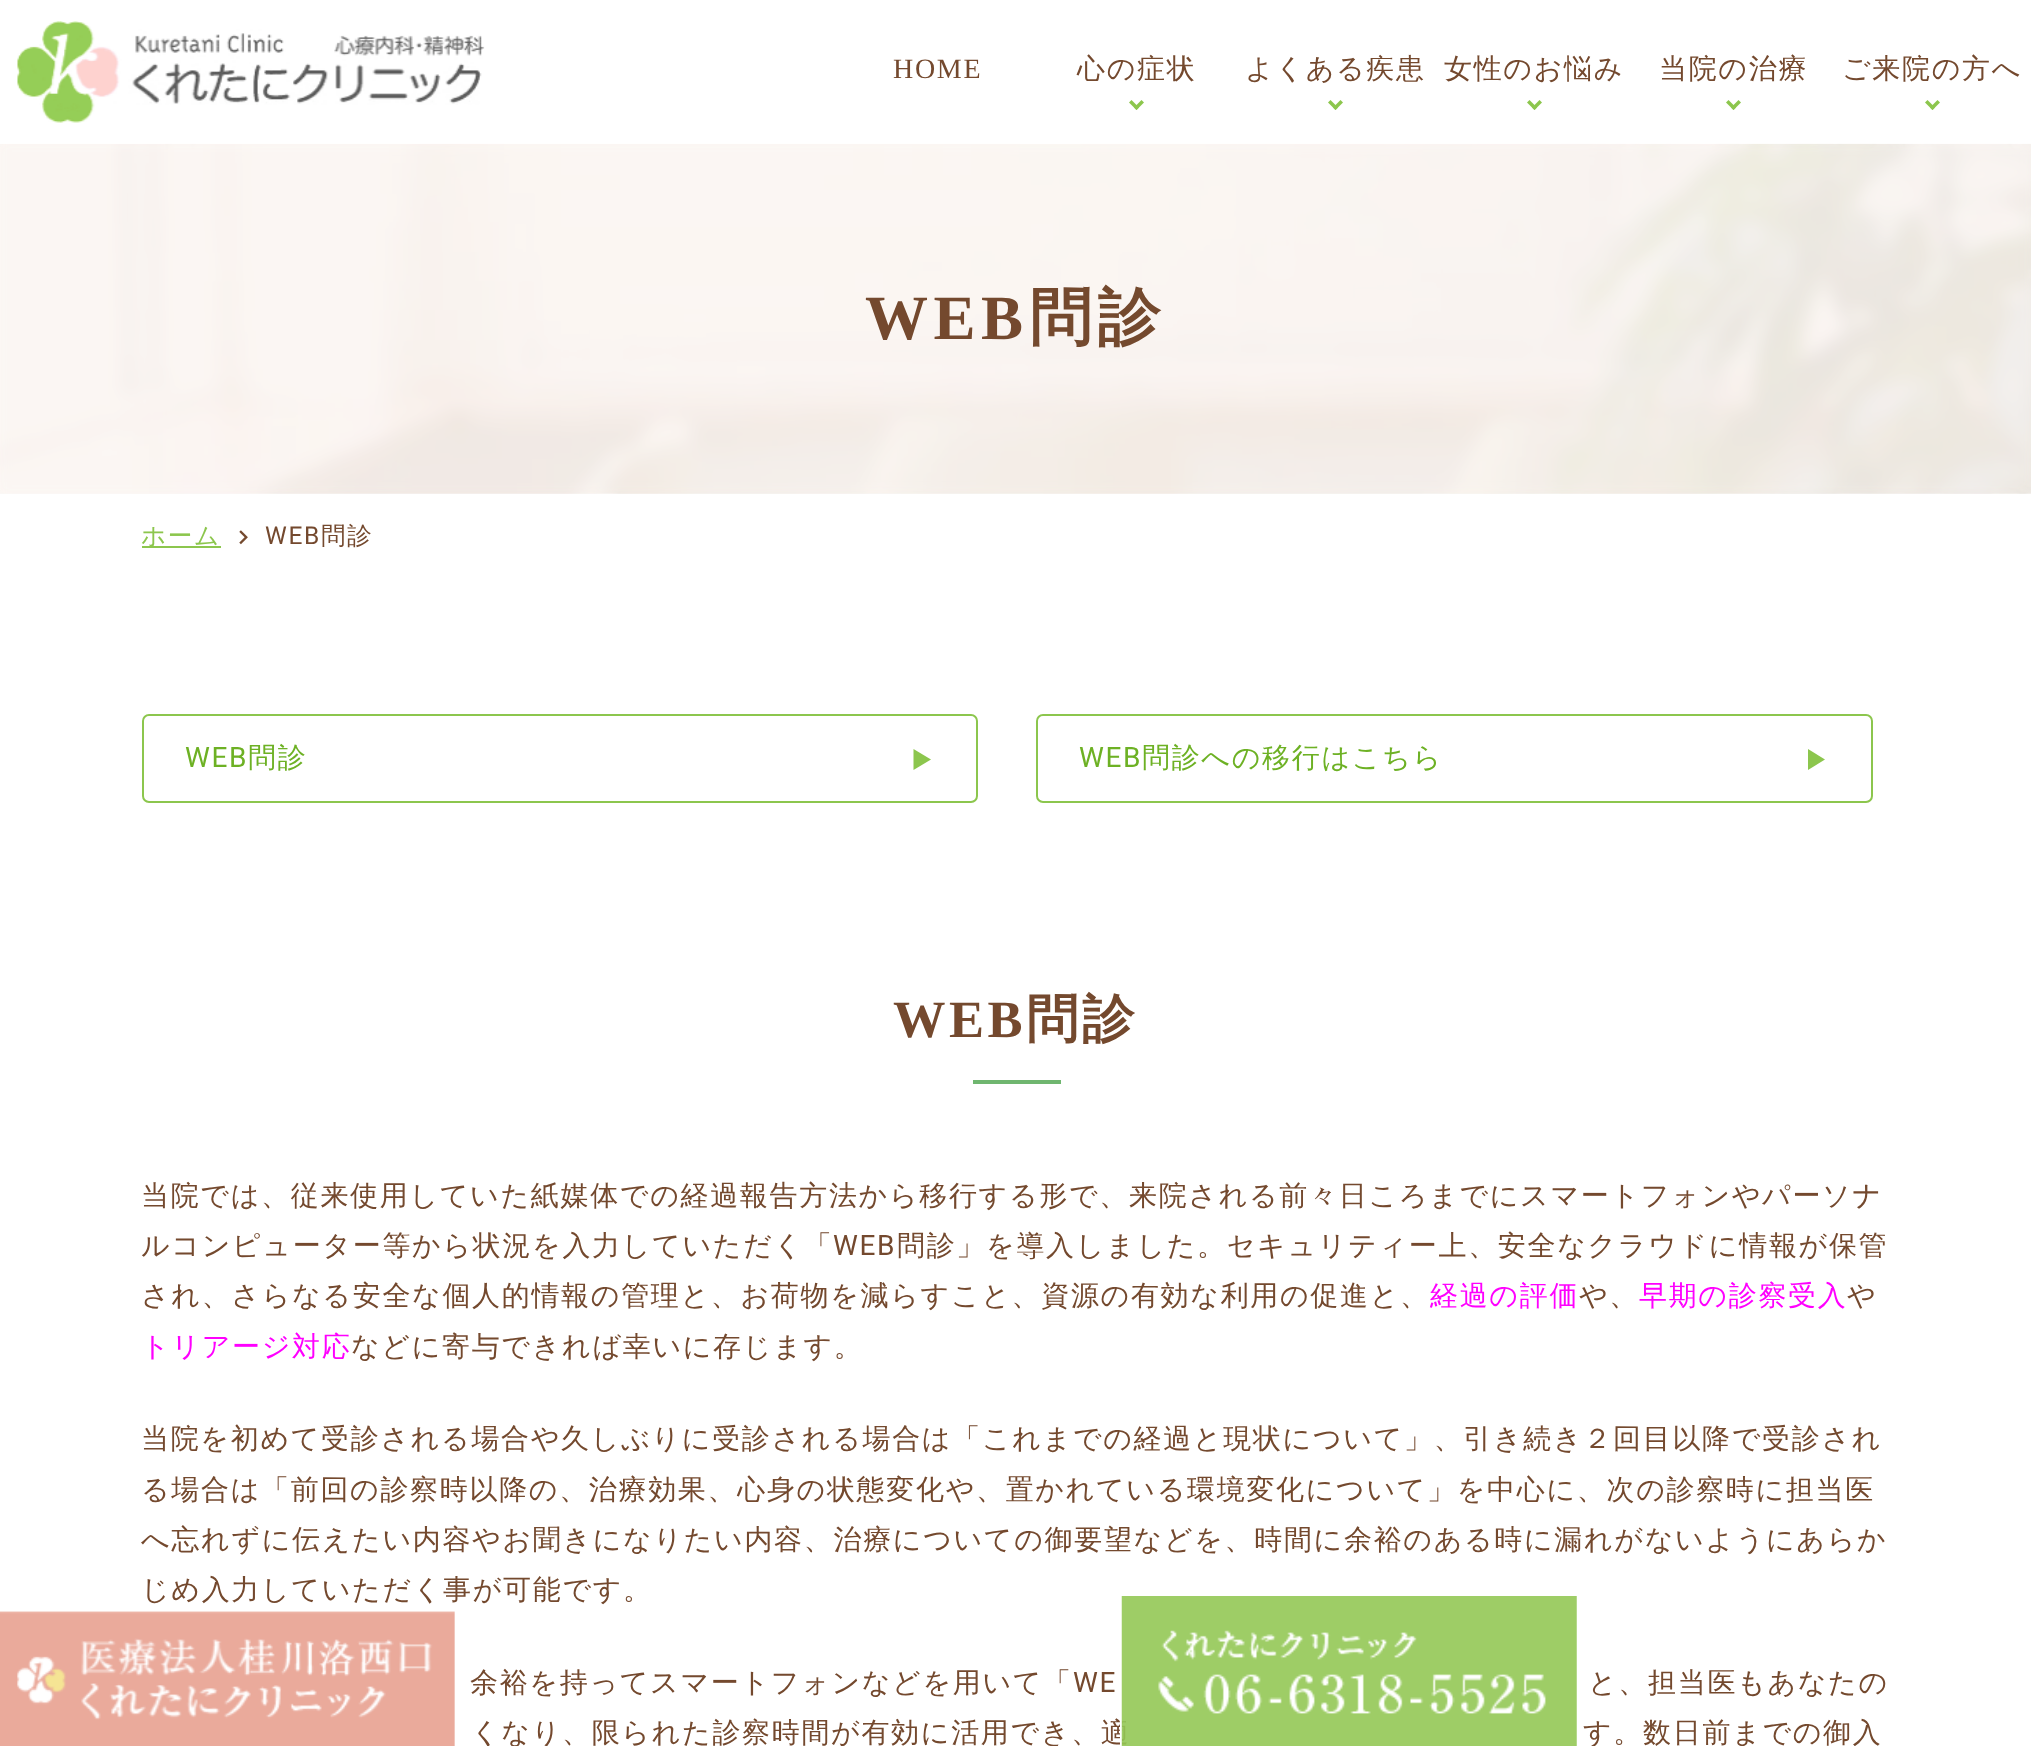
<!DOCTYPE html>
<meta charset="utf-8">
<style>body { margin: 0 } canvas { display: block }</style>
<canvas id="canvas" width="2031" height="1746"></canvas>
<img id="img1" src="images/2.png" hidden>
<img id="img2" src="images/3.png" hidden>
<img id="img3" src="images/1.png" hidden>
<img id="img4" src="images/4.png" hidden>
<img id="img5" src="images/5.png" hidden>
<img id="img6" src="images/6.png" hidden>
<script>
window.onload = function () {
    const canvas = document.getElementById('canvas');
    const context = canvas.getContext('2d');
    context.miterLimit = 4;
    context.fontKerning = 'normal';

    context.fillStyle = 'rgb(255, 255, 255)';
    context.fillRect(0, 0, 2031, 1746);
    context.fillStyle = 'rgb(251, 251, 250)';
    context.fillRect(0, 493, 2031, 1);
    context.drawImage(document.getElementById('img1'), 0, 143, 2031, 351);
    context.drawImage(document.getElementById('img2'), 0, 143, 2031, 351);
    context.fillStyle = 'rgba(255, 255, 255, 0.9)';
    context.fillRect(0, 143, 2031, 1);
    context.drawImage(document.getElementById('img3'), 17, 21, 468, 102);
    context.fillStyle = 'rgb(140, 198, 77)';
    context.beginPath();
    context.moveTo(1144, 102.5);
    context.lineTo(1136.5, 110);
    context.lineTo(1134, 107.5);
    context.lineTo(1141.5, 100);
    context.closePath();
    context.fill();
    context.beginPath();
    context.moveTo(1139, 107.5);
    context.lineTo(1136.5, 110);
    context.lineTo(1129, 102.5);
    context.lineTo(1131.5, 100);
    context.closePath();
    context.fill();
    context.beginPath();
    context.moveTo(1343, 102.5);
    context.lineTo(1335.5, 110);
    context.lineTo(1333, 107.5);
    context.lineTo(1340.5, 100);
    context.closePath();
    context.fill();
    context.beginPath();
    context.moveTo(1338, 107.5);
    context.lineTo(1335.5, 110);
    context.lineTo(1328, 102.5);
    context.lineTo(1330.5, 100);
    context.closePath();
    context.fill();
    context.beginPath();
    context.moveTo(1542, 102.5);
    context.lineTo(1534.5, 110);
    context.lineTo(1532, 107.5);
    context.lineTo(1539.5, 100);
    context.closePath();
    context.fill();
    context.beginPath();
    context.moveTo(1537, 107.5);
    context.lineTo(1534.5, 110);
    context.lineTo(1527, 102.5);
    context.lineTo(1529.5, 100);
    context.closePath();
    context.fill();
    context.beginPath();
    context.moveTo(1741, 102.5);
    context.lineTo(1733.5, 110);
    context.lineTo(1731, 107.5);
    context.lineTo(1738.5, 100);
    context.closePath();
    context.fill();
    context.beginPath();
    context.moveTo(1736, 107.5);
    context.lineTo(1733.5, 110);
    context.lineTo(1726, 102.5);
    context.lineTo(1728.5, 100);
    context.closePath();
    context.fill();
    context.beginPath();
    context.moveTo(1940, 102.5);
    context.lineTo(1932.5, 110);
    context.lineTo(1930, 107.5);
    context.lineTo(1937.5, 100);
    context.closePath();
    context.fill();
    context.beginPath();
    context.moveTo(1935, 107.5);
    context.lineTo(1932.5, 110);
    context.lineTo(1925, 102.5);
    context.lineTo(1927.5, 100);
    context.closePath();
    context.fill();
    context.fillRect(142, 546, 79, 2);
    context.drawImage(document.getElementById('img4'), 239, 530, 9, 15);
    context.beginPath();
    context.roundRect(143, 715, 834, 87, 6);
    context.strokeStyle = 'rgb(140, 198, 77)';
    context.lineWidth = 2;
    context.stroke();
    context.beginPath();
    context.moveTo(913.5, 770);
    context.lineTo(913.5, 749);
    context.lineTo(931, 759.5);
    context.closePath();
    context.fill();
    context.beginPath();
    context.roundRect(1037, 715, 835, 87, 6);
    context.stroke();
    context.beginPath();
    context.moveTo(1808, 770);
    context.lineTo(1808, 749);
    context.lineTo(1825, 759.5);
    context.closePath();
    context.fill();
    context.fillStyle = 'rgb(111, 182, 111)';
    context.fillRect(973, 1080, 88, 4);
    context.drawImage(document.getElementById('img5'), 0, 1611, 455, 135);
    context.letterSpacing = '1.68px';
    context.font = '28px Liberation Serif';
    context.fillStyle = 'rgb(116, 73, 46)';
    context.fillText('HOME', 893, 78);
    context.font = '500 28px WenQuanYi Zen Hei';
    context.fillText('心の症状', 1077, 78);
    context.fillText('よくある疾患', 1245, 78);
    context.fillText('女性のお悩み', 1444, 78);
    context.fillText('当院の治療', 1659, 78);
    context.fillText('ご来院の方へ', 1842, 78);
    context.letterSpacing = '5.5px';
    context.font = 'bold 63px Liberation Serif';
    context.fillText('WEB', 865, 339);
    context.font = 'bold 63px WenQuanYi Zen Hei';
    context.fillText('問診', 1029, 339);
    context.letterSpacing = '1.68px';
    context.font = '500 24.5px WenQuanYi Zen Hei';
    context.fillStyle = 'rgb(140, 198, 77)';
    context.fillText('ホーム', 141, 544);
    context.font = '24.5px Roboto';
    context.fillStyle = 'rgb(116, 73, 46)';
    context.fillText('WEB', 265, 544);
    context.font = '500 24.5px WenQuanYi Zen Hei';
    context.fillText('問診', 321, 544);
    context.font = '28px Roboto';
    context.fillStyle = 'rgb(109, 177, 36)';
    context.fillText('WEB', 185, 767);
    context.font = '500 28px WenQuanYi Zen Hei';
    context.fillText('問診', 248, 767);
    context.font = '28px Roboto';
    context.fillText('WEB', 1079, 767);
    context.font = '500 28px WenQuanYi Zen Hei';
    context.fillText('問診への移行はこちら', 1142, 767);
    context.letterSpacing = '3.5px';
    context.font = 'bold 52.5px Liberation Serif';
    context.fillStyle = 'rgb(116, 73, 46)';
    context.fillText('WEB', 893, 1037);
    context.font = 'bold 52.5px WenQuanYi Zen Hei';
    context.fillText('問診', 1026, 1037);
    context.letterSpacing = '1.68px';
    context.font = '500 28px WenQuanYi Zen Hei';
    context.fillText('当院では、従来使用していた紙媒体での経過報告方法から移行する形で、来院される前々日ころまでにスマートフォンやパーソナ', 141, 1205);
    context.fillText('ルコンピューター等から状況を入力していただく「', 141, 1255);
    context.font = '28px Roboto';
    context.fillText('WEB', 833, 1255);
    context.font = '500 28px WenQuanYi Zen Hei';
    context.fillText('問診」を導入しました。セキュリティー上、安全なクラウドに情報が保管', 897, 1255);
    context.fillText('され、さらなる安全な個人的情報の管理と、お荷物を減らすこと、資源の有効な利用の促進と、', 141, 1305);
    context.fillStyle = 'rgb(255, 0, 255)';
    context.fillText('経過の評価', 1430, 1305);
    context.fillStyle = 'rgb(116, 73, 46)';
    context.fillText('や、', 1579, 1305);
    context.fillStyle = 'rgb(255, 0, 255)';
    context.fillText('早期の診察受入', 1639, 1305);
    context.fillStyle = 'rgb(116, 73, 46)';
    context.fillText('や', 1847, 1305);
    context.fillStyle = 'rgb(255, 0, 255)';
    context.fillText('トリアージ対応', 141, 1356);
    context.fillStyle = 'rgb(116, 73, 46)';
    context.fillText('などに寄与できれば幸いに存じます。', 351, 1356);
    context.fillText('当院を初めて受診される場合や久しぶりに受診される場合は「これまでの経過と現状について」、引き続き２回目以降で受診され', 141, 1448);
    context.fillText('る場合は「前回の診察時以降の、治療効果、心身の状態変化や、置かれている環境変化について」を中心に、次の診察時に担当医', 141, 1499);
    context.fillText('へ忘れずに伝えたい内容やお聞きになりたい内容、治療についての御要望などを、時間に余裕のある時に漏れがないようにあらか', 141, 1549);
    context.fillText('じめ入力していただく事が可能です。', 141, 1599);
    context.fillText('余裕を持ってスマートフォンなどを用いて「', 470, 1692);
    context.font = '28px Roboto';
    context.fillText('WE', 1073, 1692);
    context.font = '500 28px WenQuanYi Zen Hei';
    context.fillText('と、担当医もあなたの', 1588, 1692);
    context.fillText('くなり、限られた診察時間が有効に活用でき、適', 471, 1742);
    context.fillText('す。数日前までの御入', 1583, 1742);
    context.fillStyle = 'rgb(255, 255, 255)';
    context.fillRect(1120, 1721, 2, 25);
    context.drawImage(document.getElementById('img6'), 1121, 1596, 456, 150);
};
</script>
